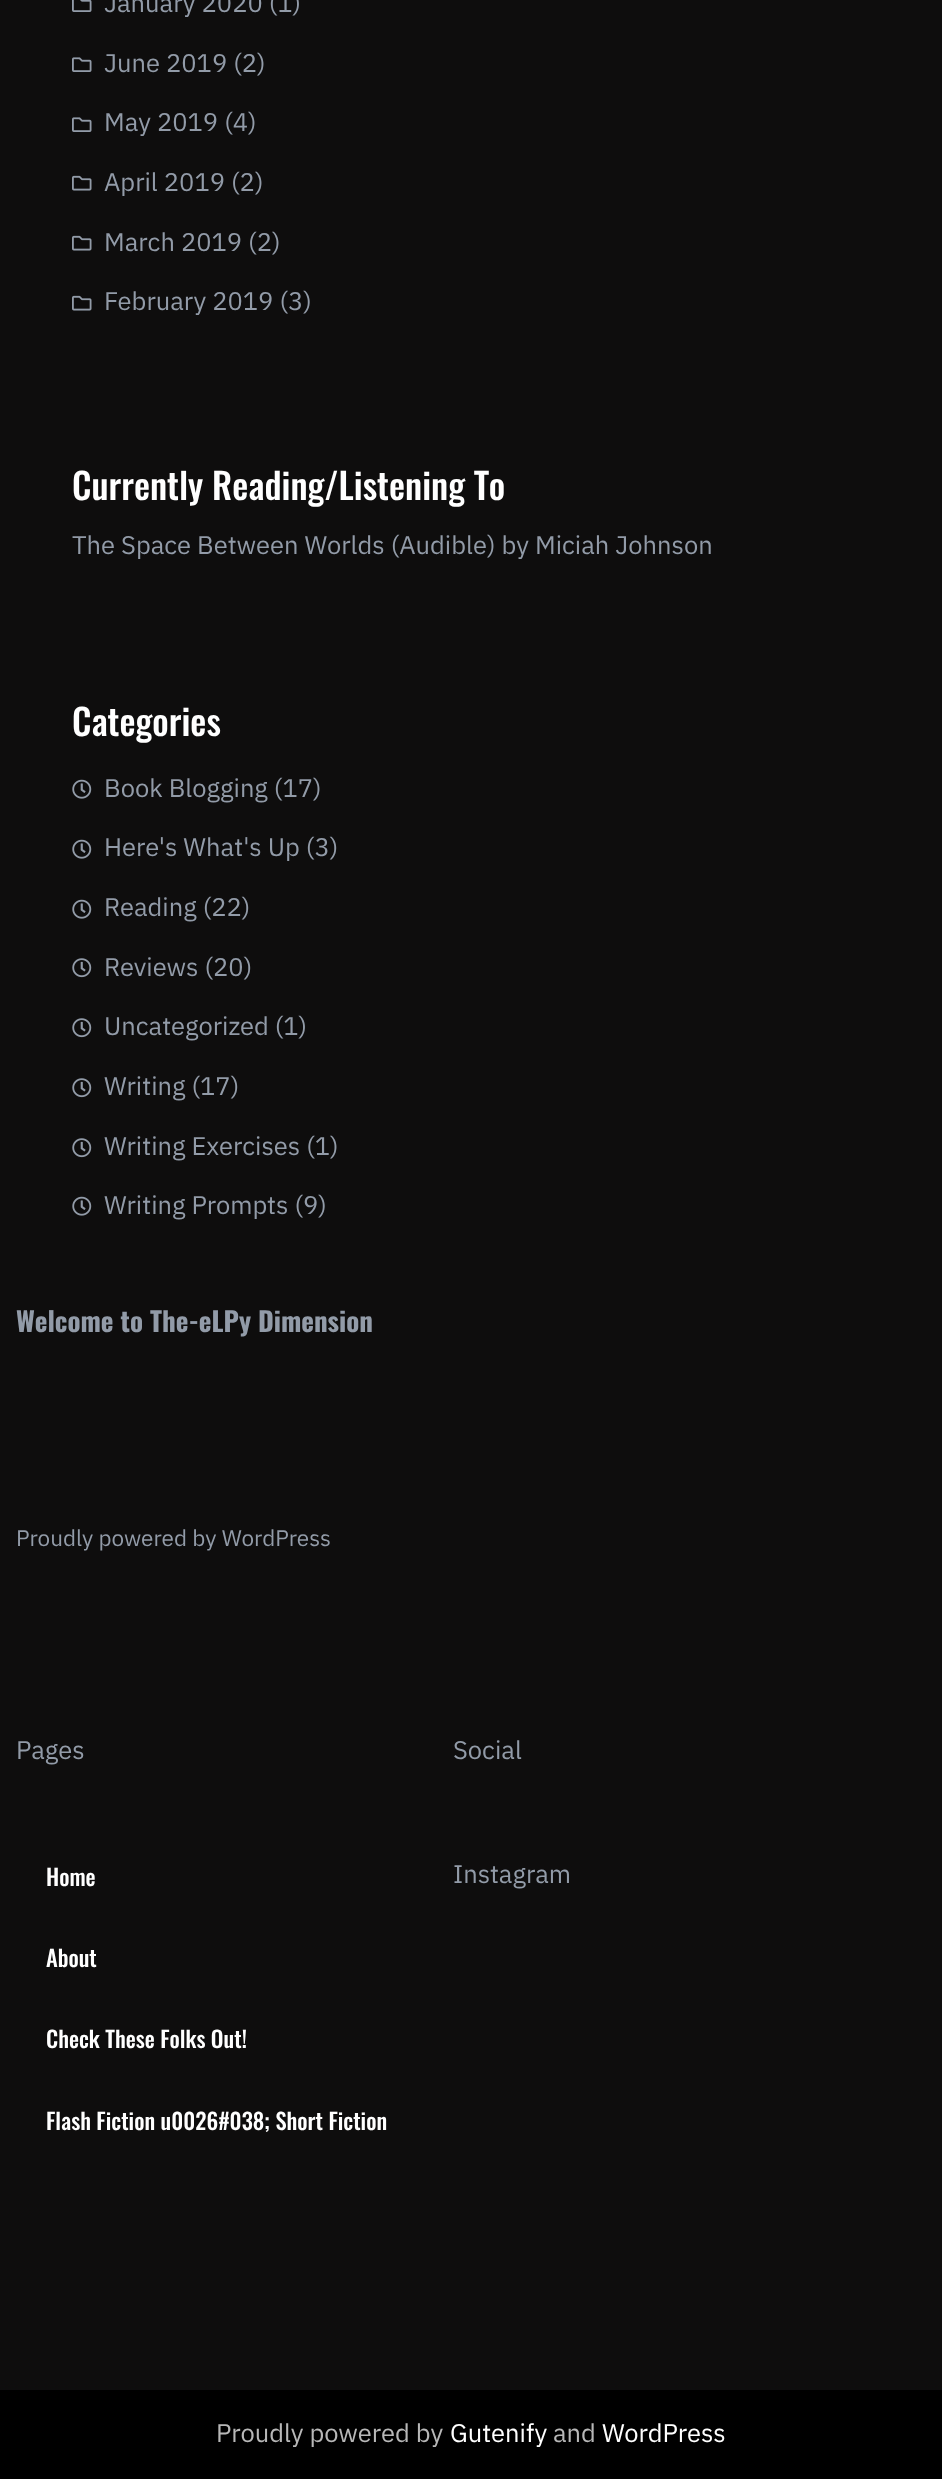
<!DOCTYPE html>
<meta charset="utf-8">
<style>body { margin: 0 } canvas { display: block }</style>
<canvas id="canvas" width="942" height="2479"></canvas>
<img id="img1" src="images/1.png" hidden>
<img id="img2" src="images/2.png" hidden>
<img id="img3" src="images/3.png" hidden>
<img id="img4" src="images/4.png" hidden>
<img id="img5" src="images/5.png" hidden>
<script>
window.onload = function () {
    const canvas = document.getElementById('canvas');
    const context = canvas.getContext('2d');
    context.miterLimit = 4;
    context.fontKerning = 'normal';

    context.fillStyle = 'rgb(0, 0, 0)';
    context.fillRect(0, 0, 942, 2479);
    context.fillStyle = 'rgb(14, 13, 13)';
    context.fillRect(0, 0, 942, 2390);
    context.drawImage(document.getElementById('img1'), 72, 0, 20, 12);
    context.drawImage(document.getElementById('img2'), 72, 57, 20, 15);
    context.drawImage(document.getElementById('img2'), 72, 117, 20, 15);
    context.drawImage(document.getElementById('img3'), 72, 175, 20, 16);
    context.drawImage(document.getElementById('img3'), 72, 235, 20, 16);
    context.drawImage(document.getElementById('img3'), 72, 295, 20, 16);
    context.drawImage(document.getElementById('img4'), 72, 779, 20, 20);
    context.drawImage(document.getElementById('img4'), 72, 839, 20, 20);
    context.drawImage(document.getElementById('img4'), 72, 899, 20, 20);
    context.drawImage(document.getElementById('img5'), 72, 958, 20, 20);
    context.drawImage(document.getElementById('img5'), 72, 1018, 20, 20);
    context.drawImage(document.getElementById('img5'), 72, 1078, 20, 20);
    context.drawImage(document.getElementById('img5'), 72, 1138, 20, 20);
    context.drawImage(document.getElementById('img4'), 72, 1196, 20, 20);
    context.font = '25.5px IBM Plex Sans';
    context.fillStyle = 'rgb(146, 155, 168)';
    context.fillText('January 2020 (1)', 104, 12);
    context.fillText('June 2019 (2)', 104, 72);
    context.fillText('May 2019 (4)', 104, 131);
    context.fillText('April 2019 (2)', 104, 191);
    context.fillText('March 2019 (2)', 104, 251);
    context.fillText('February 2019 (3)', 104, 310);
    context.font = '500 36px Oswald';
    context.fillStyle = 'rgb(255, 255, 255)';
    context.fillText('Currently Reading/Listening To', 72, 500);
    context.font = '25.5px IBM Plex Sans';
    context.fillStyle = 'rgb(146, 155, 168)';
    context.fillText('The Space Between Worlds (Audible) by Miciah Johnson', 72, 554);
    context.font = '500 36px Oswald';
    context.fillStyle = 'rgb(255, 255, 255)';
    context.fillText('Categories', 72, 736);
    context.font = '25.5px IBM Plex Sans';
    context.fillStyle = 'rgb(146, 155, 168)';
    context.fillText('Book Blogging (17)', 104, 797);
    context.fillText('Here\'s What\'s Up (3)', 104, 856);
    context.fillText('Reading (22)', 104, 916);
    context.fillText('Reviews (20)', 104, 976);
    context.fillText('Uncategorized (1)', 104, 1035);
    context.fillText('Writing (17)', 104, 1095);
    context.fillText('Writing Exercises (1)', 104, 1155);
    context.fillText('Writing Prompts (9)', 104, 1214);
    context.font = 'bold 27px Oswald';
    context.fillText('Welcome to The-eLPy Dimension', 16, 1332);
    context.font = '22.5px IBM Plex Sans';
    context.fillText('Proudly powered by WordPress', 16, 1546);
    context.font = '25.5px IBM Plex Sans';
    context.fillText('Pages', 16, 1759);
    context.font = '500 22.5px Oswald';
    context.fillStyle = 'rgb(255, 255, 255)';
    context.fillText('Home', 46, 1886);
    context.fillText('About', 46, 1967);
    context.fillText('Check These Folks Out!', 46, 2048);
    context.fillText('Flash Fiction u0026#038; Short Fiction', 46, 2130);
    context.font = '25.5px IBM Plex Sans';
    context.fillStyle = 'rgb(146, 155, 168)';
    context.fillText('Social', 453, 1759);
    context.fillText('Instagram', 453, 1883);
    context.fillStyle = 'rgb(183, 183, 183)';
    context.fillText('Proudly powered by', 216, 2442);
    context.fillStyle = 'rgb(255, 255, 255)';
    context.fillText('Gutenify', 450, 2442);
    context.fillStyle = 'rgb(183, 183, 183)';
    context.fillText('and', 553, 2442);
    context.fillStyle = 'rgb(255, 255, 255)';
    context.fillText('WordPress', 602, 2442);
};
</script>
